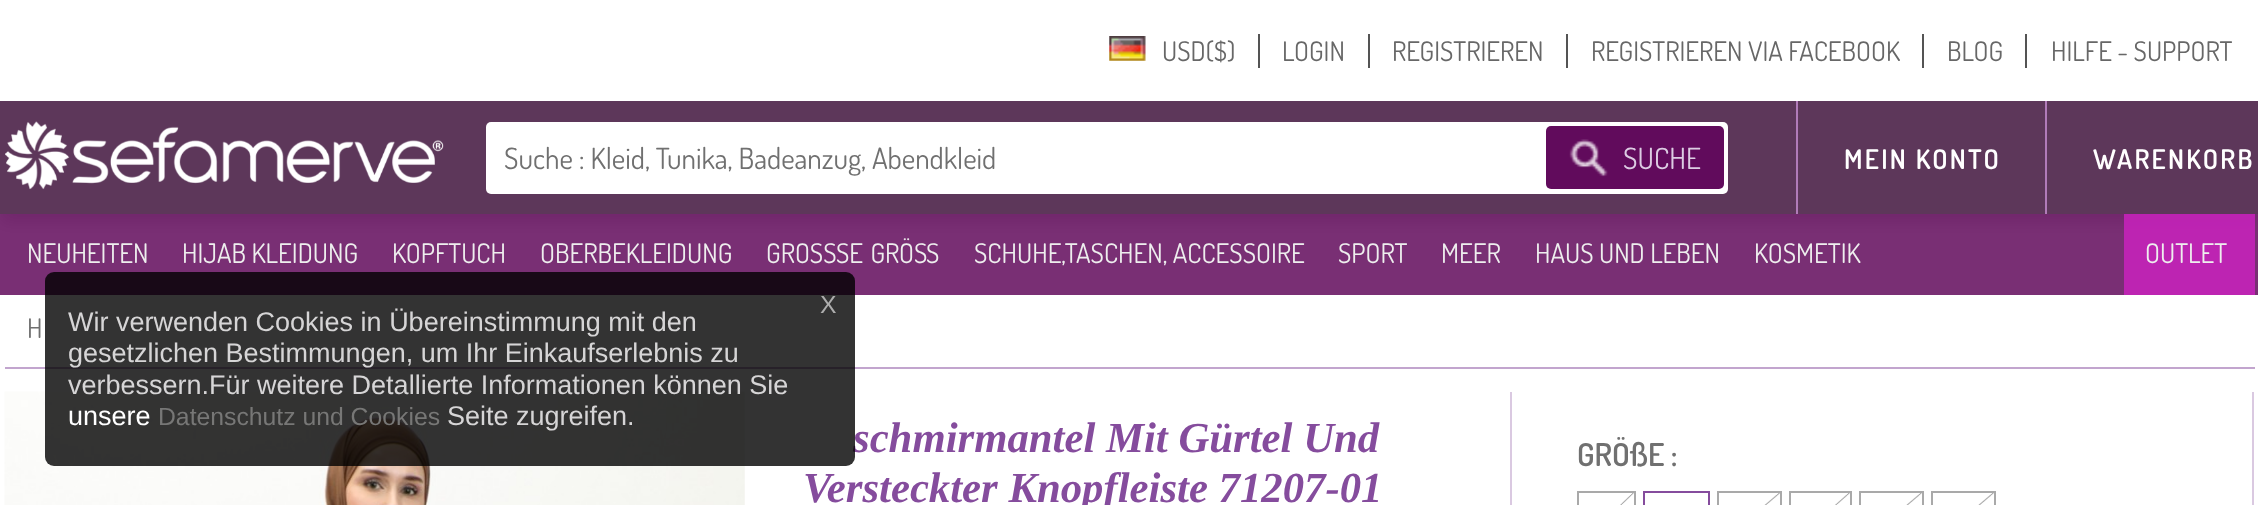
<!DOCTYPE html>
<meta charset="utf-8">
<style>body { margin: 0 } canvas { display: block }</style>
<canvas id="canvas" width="2258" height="505"></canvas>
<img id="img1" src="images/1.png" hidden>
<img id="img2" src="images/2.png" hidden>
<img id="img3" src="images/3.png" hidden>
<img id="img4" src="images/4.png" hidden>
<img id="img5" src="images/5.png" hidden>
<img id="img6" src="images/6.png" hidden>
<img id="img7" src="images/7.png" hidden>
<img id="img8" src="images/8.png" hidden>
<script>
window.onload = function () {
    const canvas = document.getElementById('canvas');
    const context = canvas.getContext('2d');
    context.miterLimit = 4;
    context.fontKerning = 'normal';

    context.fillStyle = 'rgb(255, 255, 255)';
    context.fillRect(0, 0, 2258, 505);
    context.fillStyle = 'rgba(0, 0, 0, 0.22)';
    context.filter = 'blur(8px)';
    context.beginPath();
    context.rect(0, 9, 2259, 214);
    context.fill();
    context.filter = 'none';
    context.fillStyle = 'rgb(255, 255, 255)';
    context.fillRect(0, 0, 2258, 101);
    context.fillStyle = 'rgb(84, 84, 84)';
    context.fillRect(1258, 34, 2, 34);
    context.drawImage(document.getElementById('img1'), 1109, 36, 37, 25);
    context.fillRect(1368, 34, 2, 34);
    context.fillRect(1566, 34, 2, 34);
    context.fillRect(1922, 34, 2, 34);
    context.fillRect(2025, 34, 2, 34);
    context.fillStyle = 'rgb(93, 55, 90)';
    context.fillRect(0, 101, 2258, 113);
    context.drawImage(document.getElementById('img2'), 5, 121, 439, 69);
    context.fillStyle = 'rgb(255, 255, 255)';
    context.beginPath();
    context.roundRect(486, 122, 1242, 72, 5);
    context.fill();
    context.fillStyle = 'rgb(97, 11, 92)';
    context.beginPath();
    context.roundRect(1546, 126, 178, 63, 5);
    context.fill();
    context.drawImage(document.getElementById('img3'), 1569, 139, 39, 38);
    context.fillStyle = 'rgb(177, 123, 185)';
    context.fillRect(1796, 101, 2, 113);
    context.fillRect(2045, 101, 2, 113);
    context.fillStyle = 'rgba(97, 11, 92, 0.85)';
    context.fillRect(0, 214, 2258, 81);
    context.fillStyle = 'rgba(201, 34, 189, 0.85)';
    context.fillRect(2124, 214, 131, 81);
    context.fillStyle = 'rgb(194, 165, 206)';
    context.fillRect(5, 367, 2250, 2);
    context.drawImage(document.getElementById('img4'), 4, 391, 741, 114);
    context.fillStyle = 'rgb(218, 201, 225)';
    context.fillRect(1510, 392, 2, 113);
    context.fillRect(2252, 392, 2, 113);
    context.drawImage(document.getElementById('img5'), 1620, 493, 14, 12);
    context.strokeStyle = 'rgb(169, 169, 169)';
    context.lineWidth = 2;
    context.strokeRect(1578, 492, 57, 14);
    context.strokeStyle = 'rgb(133, 76, 157)';
    context.strokeRect(1644, 492, 65, 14);
    context.drawImage(document.getElementById('img6'), 1764, 493, 16, 12);
    context.strokeStyle = 'rgb(169, 169, 169)';
    context.strokeRect(1718, 492, 63, 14);
    context.drawImage(document.getElementById('img7'), 1835, 493, 15, 12);
    context.strokeRect(1790, 492, 61, 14);
    context.drawImage(document.getElementById('img8'), 1906, 493, 16, 12);
    context.strokeRect(1860, 492, 63, 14);
    context.drawImage(document.getElementById('img8'), 1978, 493, 16, 12);
    context.strokeRect(1932, 492, 63, 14);
    context.font = '27px Dosis';
    context.fillStyle = 'rgb(103, 103, 103)';
    context.fillText('USD($)', 1162, 61);
    context.fillText('LOGIN', 1282, 61);
    context.fillText('REGISTRIEREN', 1392, 61);
    context.fillText('REGISTRIEREN VIA FACEBOOK', 1591, 61);
    context.fillText('BLOG', 1947, 61);
    context.fillText('HILFE - SUPPORT', 2051, 61);
    context.font = '29.25px Dosis';
    context.fillStyle = 'rgb(112, 112, 112)';
    context.fillText('Suche : Kleid, Tunika, Badeanzug, Abendkleid', 504, 169);
    context.fillStyle = 'rgb(220, 204, 227)';
    context.fillText('SUCHE', 1623, 169);
    context.letterSpacing = '2.25px';
    context.font = '600 27px Dosis';
    context.fillStyle = 'rgb(255, 255, 255)';
    context.fillText('MEIN KONTO', 1844, 169);
    context.fillText('WARENKORB', 2093, 169);
    context.letterSpacing = '0px';
    context.font = '27px Dosis';
    context.fillStyle = 'rgb(238, 238, 238)';
    context.fillText('NEUHEITEN', 27, 263);
    context.fillText('HIJAB KLEIDUNG', 182, 263);
    context.fillText('KOPFTUCH', 392, 263);
    context.fillText('OBERBEKLEIDUNG', 540, 263);
    context.fillText('GROSS', 766, 263);
    context.wordSpacing = '2px';
    context.fillText('SE GR', 836, 263);
    context.wordSpacing = '0px';
    context.fillText('ÖS', 899, 263);
    context.fillText('S', 926, 263);
    context.fillText('SCHUHE,TASCHEN, ACCESSOIRE', 974, 263);
    context.fillText('SPORT', 1338, 263);
    context.fillText('MEER', 1441, 263);
    context.fillText('HAUS UND LEBEN', 1535, 263);
    context.fillText('KOSMETIK', 1754, 263);
    context.fillText('OUTLET', 2145, 263);
    context.fillStyle = 'rgb(112, 112, 112)';
    context.fillText('H', 27, 338);
    context.font = 'italic bold 42.75px Liberation Serif';
    context.fillStyle = 'rgb(133, 76, 157)';
    context.fillText('schmirmantel Mit Gürtel Und', 853, 452);
    context.fillStyle = 'rgba(0, 0, 0, 0.8)';
    context.beginPath();
    context.roundRect(45, 272, 810, 194, 9);
    context.fill();
    context.font = '24.75px Liberation Sans';
    context.fillStyle = 'rgb(173, 173, 173)';
    context.fillText('X', 820, 313);
    context.font = '27px Liberation Sans';
    context.fillStyle = 'rgb(214, 213, 214)';
    context.fillText('Seite zugreifen.', 447, 425);
    context.font = '24.75px Liberation Sans';
    context.fillStyle = 'rgb(119, 119, 118)';
    context.fillText('Datenschutz und Cookies', 158, 425);
    context.font = '27px Liberation Sans';
    context.fillStyle = 'rgb(255, 255, 255)';
    context.fillText('unsere', 68, 425);
    context.fillStyle = 'rgb(214, 213, 214)';
    context.fillText('verbessern.Für weitere Detallierte Informationen können Sie', 68, 394);
    context.fillText('gesetzlichen Bestimmungen, um Ihr Einkaufserlebnis zu', 68, 362);
    context.fillText('Wir verwenden Cookies in Übereinstimmung mit den', 68, 331);
    context.font = 'italic bold 42.75px Liberation Serif';
    context.fillStyle = 'rgb(133, 76, 157)';
    context.fillText('Versteckter Knopfleiste 71207-01', 803, 502);
    context.font = '600 31.5px Dosis';
    context.fillStyle = 'rgb(112, 112, 112)';
    context.fillText('GRÖßE :', 1577, 466);
};
</script>
